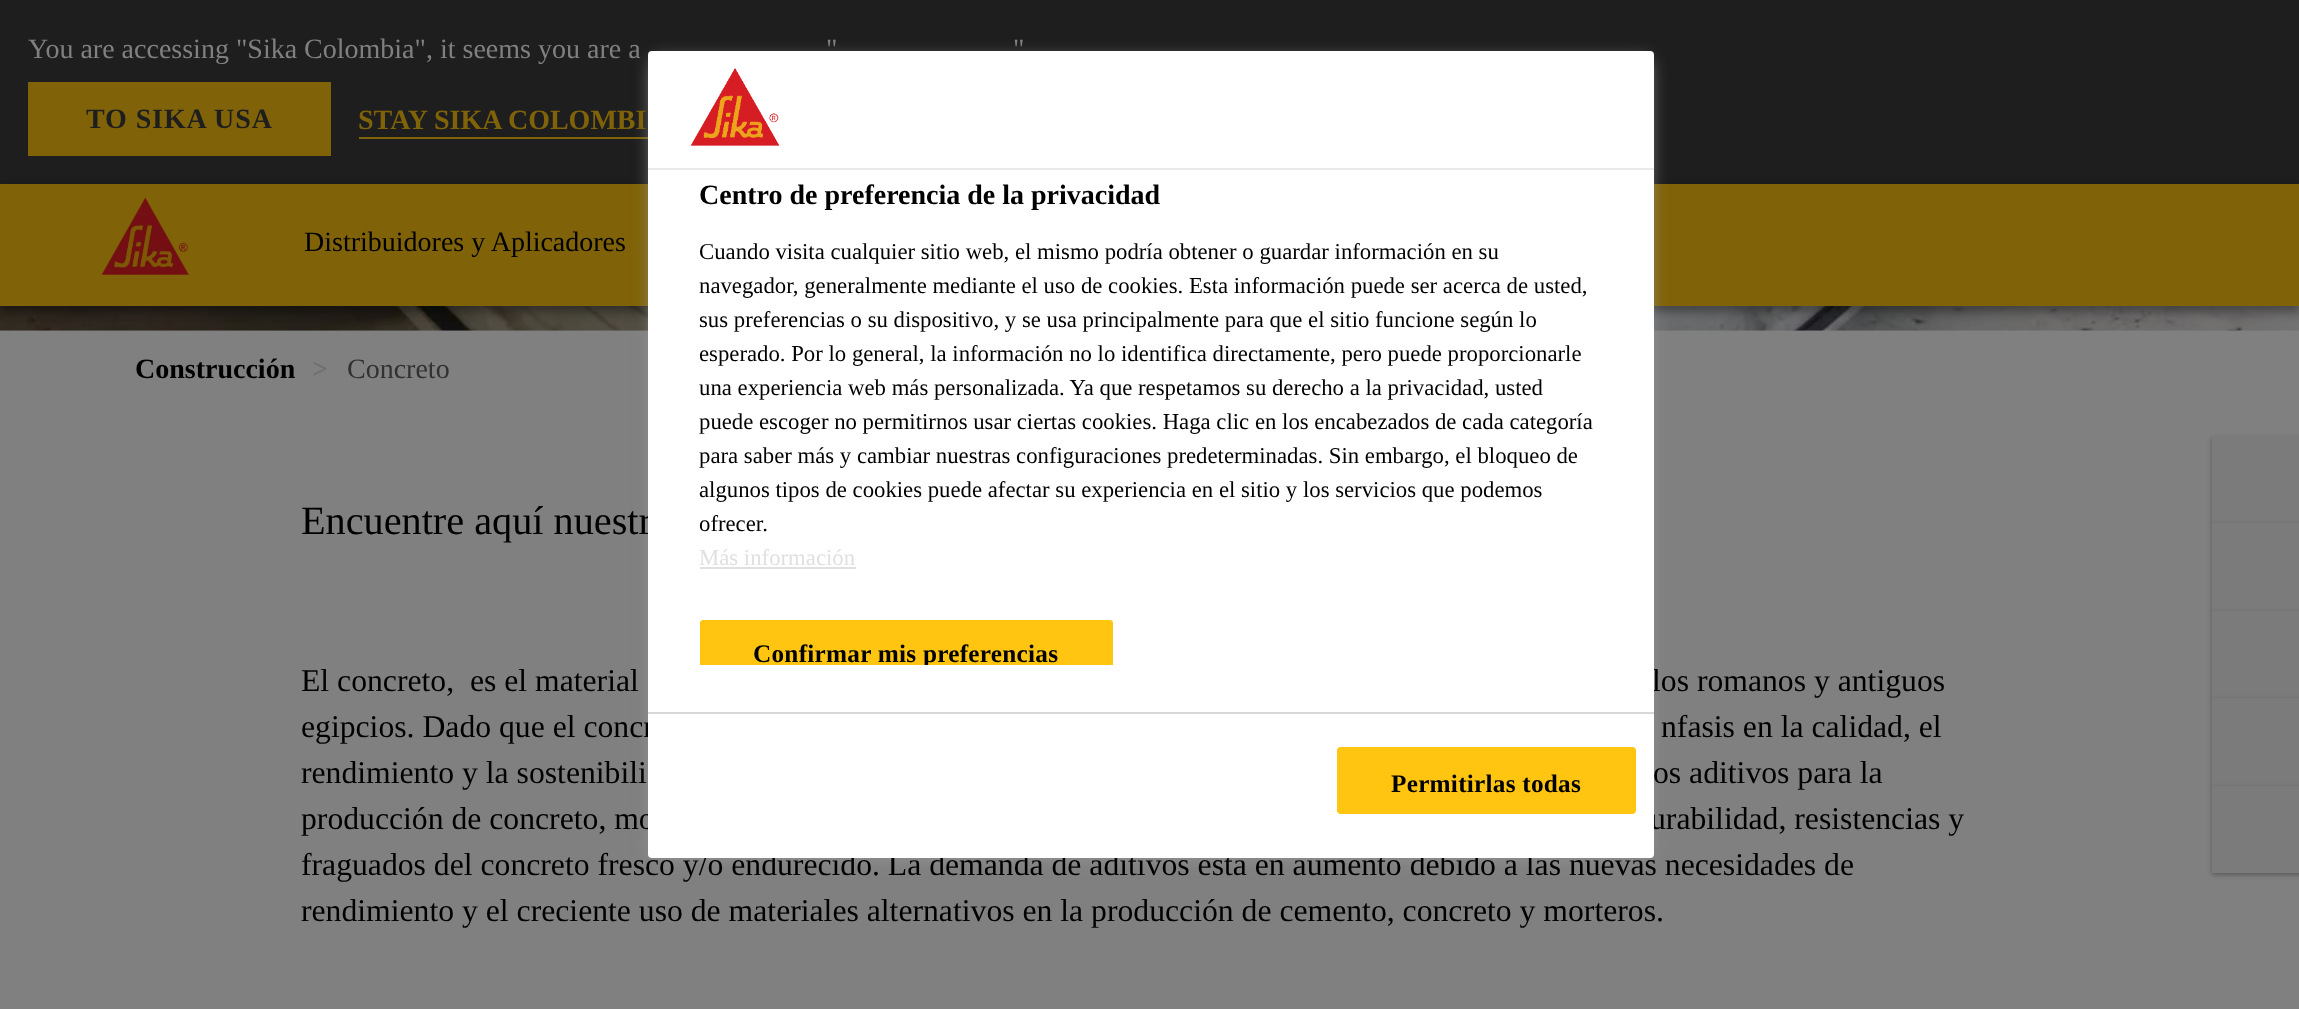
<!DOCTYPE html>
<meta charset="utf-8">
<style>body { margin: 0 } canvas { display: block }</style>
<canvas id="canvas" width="2299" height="1009"></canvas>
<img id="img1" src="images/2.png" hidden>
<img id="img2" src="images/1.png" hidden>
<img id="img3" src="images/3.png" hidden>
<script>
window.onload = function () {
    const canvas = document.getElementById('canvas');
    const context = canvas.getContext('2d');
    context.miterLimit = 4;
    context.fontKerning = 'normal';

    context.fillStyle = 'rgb(128, 128, 128)';
    context.fillRect(0, 0, 2299, 1009);
    context.fillStyle = 'rgb(30, 30, 30)';
    context.fillRect(0, 0, 2299, 184);
    context.fillStyle = 'rgb(128, 99, 8)';
    context.fillRect(28, 82, 303, 74);
    context.fillRect(359, 137, 289, 2);
    context.drawImage(document.getElementById('img1'), 0, 306, 2299, 25);
    context.fillStyle = 'rgba(0, 0, 0, 0.23)';
    context.filter = 'blur(5px)';
    context.beginPath();
    context.rect(0, 189, 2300, 123);
    context.fill();
    context.filter = 'none';
    context.fillStyle = 'rgba(0, 0, 0, 0.16)';
    context.filter = 'blur(5px)';
    context.beginPath();
    context.rect(0, 189, 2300, 123);
    context.fill();
    context.filter = 'none';
    context.fillStyle = 'rgb(128, 99, 8)';
    context.fillRect(0, 184, 2299, 122);
    context.drawImage(document.getElementById('img2'), 101, 197, 88, 78);
    context.fillStyle = 'rgba(0, 0, 0, 0.1)';
    context.filter = 'blur(2.5px)';
    context.beginPath();
    context.rect(2212, 438, 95, 87);
    context.fill();
    context.filter = 'none';
    context.fillStyle = 'rgba(0, 0, 0, 0.2)';
    context.filter = 'blur(2px)';
    context.beginPath();
    context.rect(2212, 438, 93, 87);
    context.fill();
    context.filter = 'none';
    context.fillStyle = 'rgb(123, 123, 123)';
    context.fillRect(2212, 436, 87, 87);
    context.fillStyle = 'rgba(0, 0, 0, 0.1)';
    context.filter = 'blur(2.5px)';
    context.beginPath();
    context.rect(2212, 525, 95, 88);
    context.fill();
    context.filter = 'none';
    context.fillStyle = 'rgba(0, 0, 0, 0.2)';
    context.filter = 'blur(2px)';
    context.beginPath();
    context.rect(2212, 525, 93, 88);
    context.fill();
    context.filter = 'none';
    context.fillStyle = 'rgb(123, 123, 123)';
    context.fillRect(2212, 523, 87, 88);
    context.fillStyle = 'rgba(0, 0, 0, 0.1)';
    context.filter = 'blur(2.5px)';
    context.beginPath();
    context.rect(2212, 613, 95, 87);
    context.fill();
    context.filter = 'none';
    context.fillStyle = 'rgba(0, 0, 0, 0.2)';
    context.filter = 'blur(2px)';
    context.beginPath();
    context.rect(2212, 613, 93, 87);
    context.fill();
    context.filter = 'none';
    context.fillStyle = 'rgb(123, 123, 123)';
    context.fillRect(2212, 611, 87, 87);
    context.fillStyle = 'rgba(0, 0, 0, 0.1)';
    context.filter = 'blur(2.5px)';
    context.beginPath();
    context.rect(2212, 700, 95, 88);
    context.fill();
    context.filter = 'none';
    context.fillStyle = 'rgba(0, 0, 0, 0.2)';
    context.filter = 'blur(2px)';
    context.beginPath();
    context.rect(2212, 700, 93, 88);
    context.fill();
    context.filter = 'none';
    context.fillStyle = 'rgb(123, 123, 123)';
    context.fillRect(2212, 698, 87, 88);
    context.fillStyle = 'rgba(0, 0, 0, 0.1)';
    context.filter = 'blur(2.5px)';
    context.beginPath();
    context.rect(2212, 788, 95, 87);
    context.fill();
    context.filter = 'none';
    context.fillStyle = 'rgba(0, 0, 0, 0.2)';
    context.filter = 'blur(2px)';
    context.beginPath();
    context.rect(2212, 788, 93, 87);
    context.fill();
    context.filter = 'none';
    context.fillStyle = 'rgb(123, 123, 123)';
    context.fillRect(2212, 786, 87, 87);
    context.fillStyle = 'rgb(153, 153, 153)';
    context.filter = 'blur(9px)';
    context.beginPath();
    context.rect(653, 60, 996, 796);
    context.fill();
    context.filter = 'none';
    context.font = '28px Liberation Serif';
    context.fillStyle = 'rgb(128, 128, 128)';
    context.fillText('You are accessing "Sika Colombia", it seems you are a', 28, 58);
    context.fillText('"', 826, 58);
    context.fillText('"', 1013, 58);
    context.letterSpacing = '0.9px';
    context.font = 'bold 28px Liberation Serif';
    context.fillStyle = 'rgb(30, 30, 30)';
    context.fillText('TO SIKA USA', 86, 128);
    context.letterSpacing = '0px';
    context.fillStyle = 'rgb(128, 99, 8)';
    context.fillText('STAY SIKA COLOMBI', 358, 129);
    context.font = '28px Liberation Serif';
    context.fillStyle = 'rgb(0, 0, 0)';
    context.fillText('Distribuidores y Aplicadores', 304, 251);
    context.font = 'bold 28px Liberation Serif';
    context.fillText('Construcción', 135, 378);
    context.fillStyle = 'rgb(111, 111, 111)';
    context.fillText('>', 312, 378);
    context.font = '28px Liberation Serif';
    context.fillStyle = 'rgb(49, 49, 49)';
    context.fillText('Concreto', 347, 378);
    context.font = '40.25px Liberation Serif';
    context.fillStyle = 'rgb(0, 0, 0)';
    context.fillText('Encuentre aquí nuestr', 301, 534);
    context.font = '31.7px Liberation Serif';
    context.fillText('El concreto,  es el material', 301, 691);
    context.fillText('los romanos y antiguos', 1652, 691);
    context.fillText('egipcios. Dado que el concr', 301, 737);
    context.fillText('nfasis en la calidad, el', 1661, 737);
    context.fillText('rendimiento y la sostenibili', 301, 783);
    context.fillText('os aditivos para la', 1653, 783);
    context.fillText('producción de concreto, mo', 301, 829);
    context.fillText('urabilidad, resistencias y', 1650, 829);
    context.fillText('fraguados del concreto fresco y/o endurecido. La demanda de aditivos está en aumento debido a las nuevas necesidades de', 301, 875);
    context.fillText('rendimiento y el creciente uso de materiales alternativos en la producción de cemento, concreto y morteros.', 301, 921);
    context.fillStyle = 'rgb(255, 255, 255)';
    context.beginPath();
    context.roundRect(648, 51, 1006, 807, 4);
    context.fill();
    context.fillStyle = 'rgb(233, 233, 233)';
    context.fillRect(648, 168, 1006, 2);
    context.drawImage(document.getElementById('img3'), 690, 68, 90, 78);
    context.font = 'bold 28px Liberation Serif';
    context.fillStyle = 'rgb(0, 0, 0)';
    context.fillText('Centro de preferencia de la privacidad', 699, 204);
    context.font = '22.75px Liberation Serif';
    context.fillText('Cuando visita cualquier sitio web, el mismo podría obtener o guardar información en su', 699, 259);
    context.fillText('navegador, generalmente mediante el uso de cookies. Esta información puede ser acerca de usted,', 699, 293);
    context.fillText('sus preferencias o su dispositivo, y se usa principalmente para que el sitio funcione según lo', 699, 327);
    context.fillText('esperado. Por lo general, la información no lo identifica directamente, pero puede proporcionarle', 699, 361);
    context.fillText('una experiencia web más personalizada. Ya que respetamos su derecho a la privacidad, usted', 699, 395);
    context.fillText('puede escoger no permitirnos usar ciertas cookies. Haga clic en los encabezados de cada categoría', 699, 429);
    context.fillText('para saber más y cambiar nuestras configuraciones predeterminadas. Sin embargo, el bloqueo de', 699, 463);
    context.fillText('algunos tipos de cookies puede afectar su experiencia en el sitio y los servicios que podemos', 699, 497);
    context.fillText('ofrecer.', 699, 531);
    context.fillStyle = 'rgb(224, 224, 224)';
    context.fillText('Más información', 699, 565);
    context.fillRect(700, 567, 156, 2);
    context.fillStyle = 'rgb(255, 197, 16)';
    context.beginPath();
    context.roundRect(700, 620, 413, 45, [4, 4, 0, 0]);
    context.fill();
    context.save();
    context.beginPath();
    context.rect(700, 158, 949, 507);
    context.clip();
    context.beginPath();
    context.roundRect(701, 621, 411, 68, 3);
    context.strokeStyle = 'rgb(255, 197, 16)';
    context.lineWidth = 2;
    context.stroke();
    context.letterSpacing = '0.25px';
    context.font = 'bold 25.25px Liberation Serif';
    context.fillStyle = 'rgb(0, 0, 0)';
    context.fillText('Confirmar mis preferencias', 753, 662);
    context.restore();
    context.fillStyle = 'rgb(216, 216, 216)';
    context.fillRect(648, 712, 1006, 2);
    context.fillStyle = 'rgb(255, 197, 16)';
    context.beginPath();
    context.roundRect(1338, 748, 297, 65, 3);
    context.fill();
    context.strokeStyle = 'rgb(255, 197, 16)';
    context.lineWidth = 2;
    context.stroke();
    context.letterSpacing = '0.25px';
    context.font = 'bold 25.25px Liberation Serif';
    context.fillStyle = 'rgb(0, 0, 0)';
    context.fillText('Permitirlas todas', 1391, 792);
};
</script>
